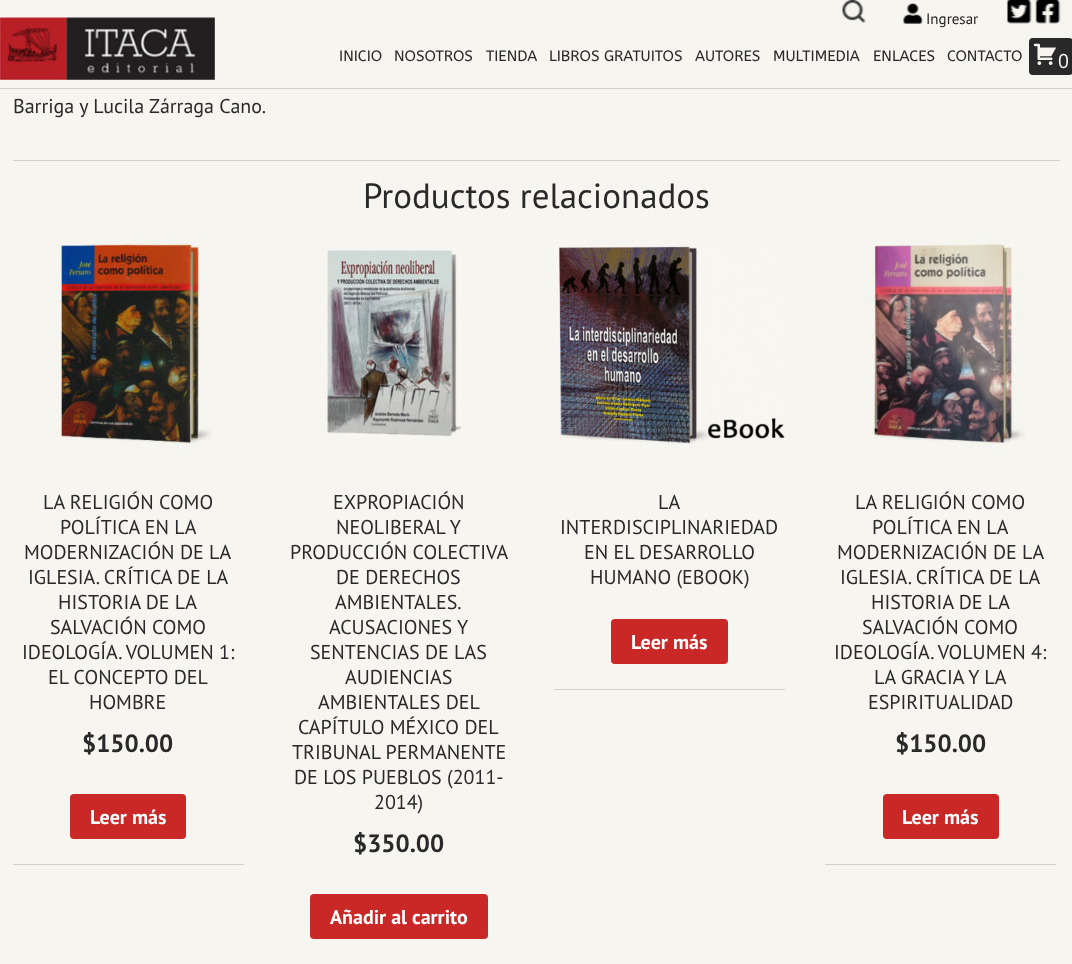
<!DOCTYPE html>
<meta charset="utf-8">
<style>body { margin: 0 } canvas { display: block }</style>
<canvas id="canvas" width="1072" height="964"></canvas>
<img id="img1" src="images/1.png" hidden>
<img id="img2" src="images/2.png" hidden>
<img id="img3" src="images/3.png" hidden>
<img id="img4" src="images/4.png" hidden>
<img id="img5" src="images/5.png" hidden>
<img id="img6" src="images/6.png" hidden>
<img id="img7" src="images/7.png" hidden>
<img id="img8" src="images/8.png" hidden>
<img id="img9" src="images/9.png" hidden>
<img id="img10" src="images/10.png" hidden>
<script>
window.onload = function () {
    const canvas = document.getElementById('canvas');
    const context = canvas.getContext('2d');
    context.miterLimit = 4;
    context.fontKerning = 'normal';

    context.fillStyle = 'rgb(246, 245, 240)';
    context.fillRect(0, 0, 1072, 964);
    context.fillStyle = 'rgb(209, 209, 202)';
    context.fillRect(0, 88, 1072, 1);
    context.drawImage(document.getElementById('img1'), 0, 17, 215, 63);
    context.drawImage(document.getElementById('img2'), 842, 0, 24, 23);
    context.drawImage(document.getElementById('img3'), 903, 3, 20, 21);
    context.drawImage(document.getElementById('img4'), 1007, 0, 25, 24);
    context.drawImage(document.getElementById('img5'), 1035, 0, 26, 24);
    context.fillStyle = 'rgb(41, 41, 41)';
    context.beginPath();
    context.roundRect(1029, 38, 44, 37, 4);
    context.fill();
    context.drawImage(document.getElementById('img6'), 1033, 43, 24, 22);
    context.fillStyle = 'rgb(209, 209, 202)';
    context.fillRect(13, 160, 1047, 1);
    context.fillRect(13, 864, 231, 1);
    context.drawImage(document.getElementById('img7'), 56, 236, 156, 213);
    context.fillStyle = 'rgb(202, 39, 39)';
    context.beginPath();
    context.roundRect(70, 794, 116, 45, 4);
    context.fill();
    context.drawImage(document.getElementById('img8'), 327, 247, 135, 190);
    context.beginPath();
    context.roundRect(310, 894, 178, 45, 4);
    context.fill();
    context.fillStyle = 'rgb(209, 209, 202)';
    context.fillRect(554, 689, 231, 1);
    context.drawImage(document.getElementById('img9'), 555, 246, 230, 198);
    context.fillStyle = 'rgb(202, 39, 39)';
    context.beginPath();
    context.roundRect(611, 619, 117, 45, 4);
    context.fill();
    context.fillStyle = 'rgb(209, 209, 202)';
    context.fillRect(825, 864, 231, 1);
    context.drawImage(document.getElementById('img10'), 868, 236, 157, 213);
    context.fillStyle = 'rgb(202, 39, 39)';
    context.beginPath();
    context.roundRect(883, 794, 116, 45, 4);
    context.fill();
    context.font = '15px PT Sans';
    context.fillStyle = 'rgb(34, 34, 34)';
    context.fillText('Ingresar', 926, 24);
    context.font = '15px ABeeZee';
    context.fillStyle = 'rgb(41, 41, 41)';
    context.fillText('INICIO', 339, 61);
    context.fillText('NOSOTROS', 394, 61);
    context.fillText('TIENDA', 486, 61);
    context.fillText('LIBROS GRATUITOS', 549, 61);
    context.fillText('AUTORES', 695, 61);
    context.fillText('MULTIMEDIA', 773, 61);
    context.fillText('ENLACES', 873, 61);
    context.fillText('CONTACTO', 947, 61);
    context.font = '20px PT Sans';
    context.fillStyle = 'rgb(246, 245, 240)';
    context.fillText('0', 1058, 68);
    context.fillStyle = 'rgb(41, 41, 41)';
    context.fillText('Barriga y Lucila Zárraga Cano.', 13, 113);
    context.font = '35px PT Sans';
    context.fillText('Productos relacionados', 363, 208);
    context.font = '20px PT Sans';
    context.fillText('LA RELIGIÓN COMO', 43, 509);
    context.fillText('POLÍTICA EN LA', 60, 534);
    context.fillText('MODERNIZACIÓN DE LA', 24, 559);
    context.fillText('IGLESIA. CRÍTICA DE LA', 28, 584);
    context.fillText('HISTORIA DE LA', 58, 609);
    context.fillText('SALVACIÓN COMO', 50, 634);
    context.fillText('IDEOLOGÍA. VOLUMEN 1:', 22, 659);
    context.fillText('EL CONCEPTO DEL', 48, 684);
    context.fillText('HOMBRE', 89, 709);
    context.font = 'bold 25px PT Sans';
    context.fillText('$150.00', 82, 752);
    context.font = 'bold 20px PT Sans';
    context.fillStyle = 'rgb(255, 255, 255)';
    context.fillText('Leer más', 90, 824);
    context.font = '20px PT Sans';
    context.fillStyle = 'rgb(41, 41, 41)';
    context.fillText('EXPROPIACIÓN', 333, 509);
    context.fillText('NEOLIBERAL Y', 336, 534);
    context.fillText('PRODUCCIÓN COLECTIVA', 290, 559);
    context.fillText('DE DERECHOS', 336, 584);
    context.fillText('AMBIENTALES.', 335, 609);
    context.fillText('ACUSACIONES Y', 329, 634);
    context.fillText('SENTENCIAS DE LAS', 310, 659);
    context.fillText('AUDIENCIAS', 345, 684);
    context.fillText('AMBIENTALES DEL', 318, 709);
    context.fillText('CAPÍTULO MÉXICO DEL', 298, 734);
    context.fillText('TRIBUNAL PERMANENTE', 292, 759);
    context.fillText('DE LOS PUEBLOS (2011-', 294, 784);
    context.fillText('2014)', 374, 809);
    context.font = 'bold 25px PT Sans';
    context.fillText('$350.00', 353, 852);
    context.font = 'bold 20px PT Sans';
    context.fillStyle = 'rgb(255, 255, 255)';
    context.fillText('Añadir al carrito', 330, 924);
    context.font = '20px PT Sans';
    context.fillStyle = 'rgb(41, 41, 41)';
    context.fillText('LA', 658, 509);
    context.fillText('INTERDISCIPLINARIEDAD', 560, 534);
    context.fillText('EN EL DESARROLLO', 584, 559);
    context.fillText('HUMANO (EBOOK)', 590, 584);
    context.font = 'bold 20px PT Sans';
    context.fillStyle = 'rgb(255, 255, 255)';
    context.fillText('Leer más', 631, 649);
    context.font = '20px PT Sans';
    context.fillStyle = 'rgb(41, 41, 41)';
    context.fillText('LA RELIGIÓN COMO', 855, 509);
    context.fillText('POLÍTICA EN LA', 872, 534);
    context.fillText('MODERNIZACIÓN DE LA', 837, 559);
    context.fillText('IGLESIA. CRÍTICA DE LA', 840, 584);
    context.fillText('HISTORIA DE LA', 871, 609);
    context.fillText('SALVACIÓN COMO', 862, 634);
    context.fillText('IDEOLOGÍA. VOLUMEN 4:', 834, 659);
    context.fillText('LA GRACIA Y LA', 874, 684);
    context.fillText('ESPIRITUALIDAD', 868, 709);
    context.font = 'bold 25px PT Sans';
    context.fillText('$150.00', 895, 752);
    context.font = 'bold 20px PT Sans';
    context.fillStyle = 'rgb(255, 255, 255)';
    context.fillText('Leer más', 902, 824);
};
</script>
